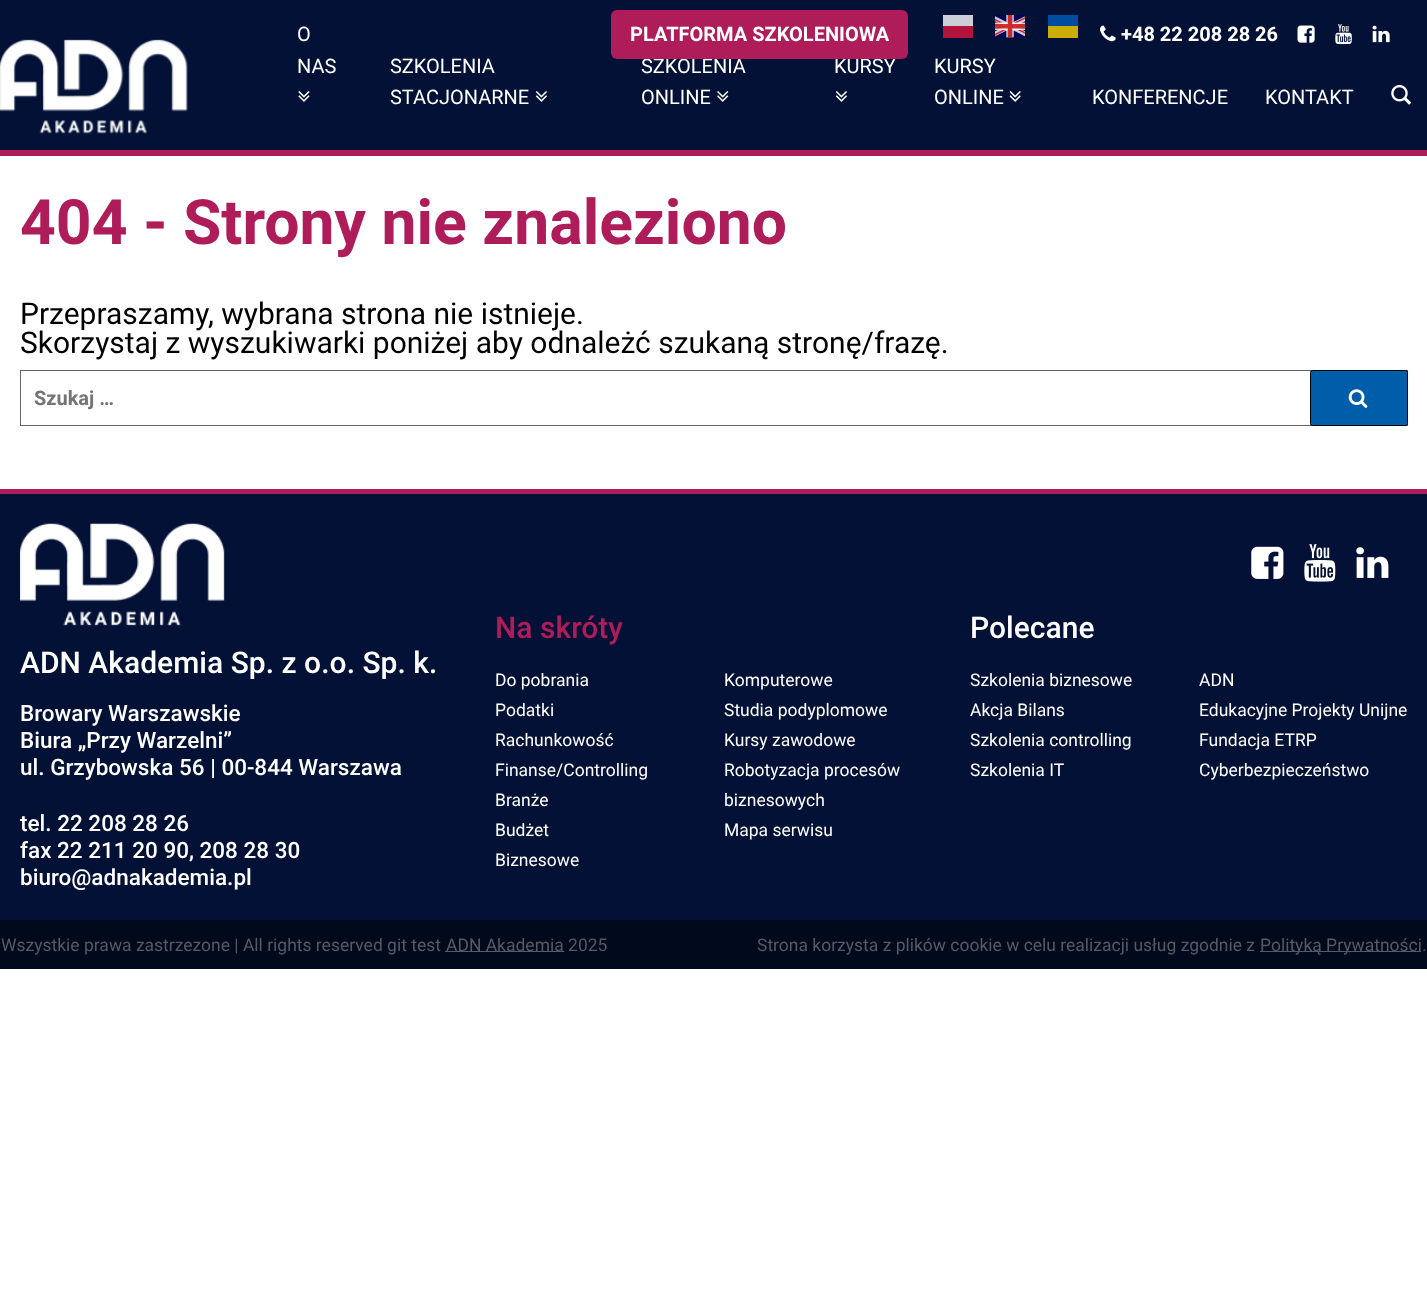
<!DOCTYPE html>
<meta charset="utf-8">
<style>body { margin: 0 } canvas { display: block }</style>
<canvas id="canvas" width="1427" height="1311"></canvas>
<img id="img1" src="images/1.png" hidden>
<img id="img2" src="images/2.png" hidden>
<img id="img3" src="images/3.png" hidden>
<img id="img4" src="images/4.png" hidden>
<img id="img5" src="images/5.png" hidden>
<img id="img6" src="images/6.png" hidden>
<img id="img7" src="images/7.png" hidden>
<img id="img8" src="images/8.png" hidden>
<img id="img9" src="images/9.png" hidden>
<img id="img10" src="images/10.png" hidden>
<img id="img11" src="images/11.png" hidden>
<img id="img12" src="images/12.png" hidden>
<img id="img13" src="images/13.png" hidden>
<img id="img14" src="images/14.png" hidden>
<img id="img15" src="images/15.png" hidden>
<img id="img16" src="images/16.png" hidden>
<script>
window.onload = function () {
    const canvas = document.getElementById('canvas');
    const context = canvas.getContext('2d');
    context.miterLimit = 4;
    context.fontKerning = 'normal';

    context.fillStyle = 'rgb(255, 255, 255)';
    context.fillRect(0, 0, 1427, 1311);
    context.fillStyle = 'rgb(174, 28, 90)';
    context.fillRect(0, 150, 1427, 6);
    context.fillStyle = 'rgb(2, 17, 53)';
    context.fillRect(0, 0, 1427, 150);
    context.fillStyle = 'rgb(204, 207, 215)';
    context.fillRect(943, 15, 30, 11);
    context.drawImage(document.getElementById('img1'), 995, 15, 30, 23);
    context.fillStyle = 'rgb(0, 76, 160)';
    context.fillRect(1048, 15, 30, 11);
    context.fillStyle = 'rgb(176, 19, 59)';
    context.fillRect(943, 26, 30, 12);
    context.fillStyle = 'rgb(204, 174, 11)';
    context.fillRect(1048, 26, 30, 12);
    context.drawImage(document.getElementById('img2'), 1100, 25, 16, 17);
    context.drawImage(document.getElementById('img3'), 1297, 25, 18, 18);
    context.drawImage(document.getElementById('img4'), 1335, 24, 17, 21);
    context.drawImage(document.getElementById('img5'), 1372, 25, 18, 18);
    context.strokeStyle = 'rgb(102, 102, 102)';
    context.strokeRect(20.5, 370.5, 1387, 55);
    context.fillStyle = 'rgb(0, 93, 169)';
    context.beginPath();
    context.roundRect(1310.5, 370.5, 97, 55, 2);
    context.fill();
    context.strokeStyle = 'rgb(0, 0, 0)';
    context.stroke();
    context.drawImage(document.getElementById('img6'), 1348, 389, 20, 19);
    context.fillStyle = 'rgb(2, 17, 53)';
    context.fillRect(0, 494, 1427, 426);
    context.fillStyle = 'rgb(174, 28, 90)';
    context.fillRect(0, 489, 1427, 5);
    context.drawImage(document.getElementById('img7'), 20, 523, 205, 103);
    context.drawImage(document.getElementById('img8'), 1251, 546, 33, 33);
    context.drawImage(document.getElementById('img9'), 1304, 544, 32, 38);
    context.drawImage(document.getElementById('img10'), 1356, 547, 33, 31);
    context.fillStyle = 'rgb(1, 9, 28)';
    context.fillRect(0, 920, 1427, 49);
    context.fillStyle = 'rgb(86, 90, 99)';
    context.fillRect(445, 951, 119, 1);
    context.fillRect(1260, 951, 161, 1);
    context.drawImage(document.getElementById('img11'), 0, 39, 188, 95);
    context.drawImage(document.getElementById('img12'), 298, 91, 12, 11);
    context.drawImage(document.getElementById('img13'), 535, 91, 12, 11);
    context.drawImage(document.getElementById('img14'), 717, 91, 12, 11);
    context.drawImage(document.getElementById('img13'), 835, 91, 12, 11);
    context.drawImage(document.getElementById('img15'), 1009, 91, 12, 11);
    context.drawImage(document.getElementById('img16'), 1391, 85, 20, 20);
    context.font = 'bold 20px Roboto';
    context.fillStyle = 'rgb(255, 255, 255)';
    context.fillText('+48 22 208 28 26', 1121, 41);
    context.font = 'bold 62.5px Roboto';
    context.fillStyle = 'rgb(174, 28, 90)';
    context.fillText('404 - Strony nie znaleziono', 20, 244);
    context.font = '30px Roboto';
    context.fillStyle = 'rgb(0, 0, 0)';
    context.fillText('Przepraszamy, wybrana strona nie istnieje.', 20, 324);
    context.fillText('Skorzystaj z wyszukiwarki poniżej aby odnależć szukaną stronę/frazę.', 20, 353);
    context.font = 'bold 20px Roboto';
    context.fillStyle = 'rgb(117, 117, 117)';
    context.fillText('Szukaj …', 34, 405);
    context.font = '500 30px Roboto';
    context.fillStyle = 'rgb(255, 255, 255)';
    context.fillText('ADN Akademia Sp. z o.o. Sp. k.', 20, 673);
    context.font = '500 22.5px Roboto';
    context.fillText('Browary Warszawskie', 20, 721);
    context.fillText('Biura „Przy Warzelni”', 20, 748);
    context.fillText('ul. Grzybowska 56 | 00-844 Warszawa', 20, 775);
    context.fillText('tel. 22 208 28 26', 20, 831);
    context.fillText('fax 22 211 20 90, 208 28 30', 20, 858);
    context.fillText('biuro@adnakademia.pl', 20, 885);
    context.font = '500 30px Roboto';
    context.fillStyle = 'rgb(174, 28, 90)';
    context.fillText('Na skróty', 495, 638);
    context.font = '17.5px Roboto';
    context.fillStyle = 'rgb(255, 255, 255)';
    context.fillText('Do pobrania', 495, 686);
    context.fillText('Komputerowe', 724, 686);
    context.fillText('Podatki', 495, 716);
    context.fillText('Studia podyplomowe', 724, 716);
    context.fillText('Rachunkowość', 495, 746);
    context.fillText('Kursy zawodowe', 724, 746);
    context.fillText('Finanse/Controlling', 495, 776);
    context.fillText('Robotyzacja procesów', 724, 776);
    context.fillText('biznesowych', 724, 806);
    context.fillText('Branże', 495, 806);
    context.fillText('Budżet', 495, 836);
    context.fillText('Mapa serwisu', 724, 836);
    context.fillText('Biznesowe', 495, 866);
    context.font = '500 30px Roboto';
    context.fillText('Polecane', 970, 638);
    context.font = '17.5px Roboto';
    context.fillText('Szkolenia biznesowe', 970, 686);
    context.fillText('ADN', 1199, 686);
    context.fillText('Akcja Bilans', 970, 716);
    context.fillText('Edukacyjne Projekty Unijne', 1199, 716);
    context.fillText('Szkolenia controlling', 970, 746);
    context.fillText('Fundacja ETRP', 1199, 746);
    context.fillText('Szkolenia IT', 970, 776);
    context.fillText('Cyberbezpieczeństwo', 1199, 776);
    context.fillStyle = 'rgb(86, 90, 99)';
    context.fillText('Wszystkie prawa zastrzezone | All rights reserved git test', 1, 951);
    context.fillText('ADN Akademia 2025', 446, 951);
    context.fillText('Strona korzysta z plików cookie w celu realizacji usług zgodnie z', 757, 951);
    context.fillText('Polityką Prywatności.', 1260, 951);
    context.font = '20px Roboto';
    context.fillStyle = 'rgb(255, 255, 255)';
    context.fillText('O', 297, 41);
    context.fillText('NAS', 297, 73);
    context.fillText('SZKOLENIA', 390, 73);
    context.fillText('STACJONARNE', 390, 104);
    context.fillText('SZKOLENIA', 641, 73);
    context.fillText('ONLINE', 641, 104);
    context.fillText('KURSY', 834, 73);
    context.fillStyle = 'rgb(174, 28, 90)';
    context.beginPath();
    context.roundRect(611, 10, 297, 49, 6);
    context.fill();
    context.font = 'bold 20px Roboto';
    context.fillStyle = 'rgb(255, 255, 255)';
    context.fillText('PLATFORMA SZKOLENIOWA', 630, 41);
    context.font = '20px Roboto';
    context.fillText('KURSY', 934, 73);
    context.fillText('ONLINE', 934, 104);
    context.fillText('KONFERENCJE', 1092, 104);
    context.fillText('KONTAKT', 1265, 104);
};
</script>
